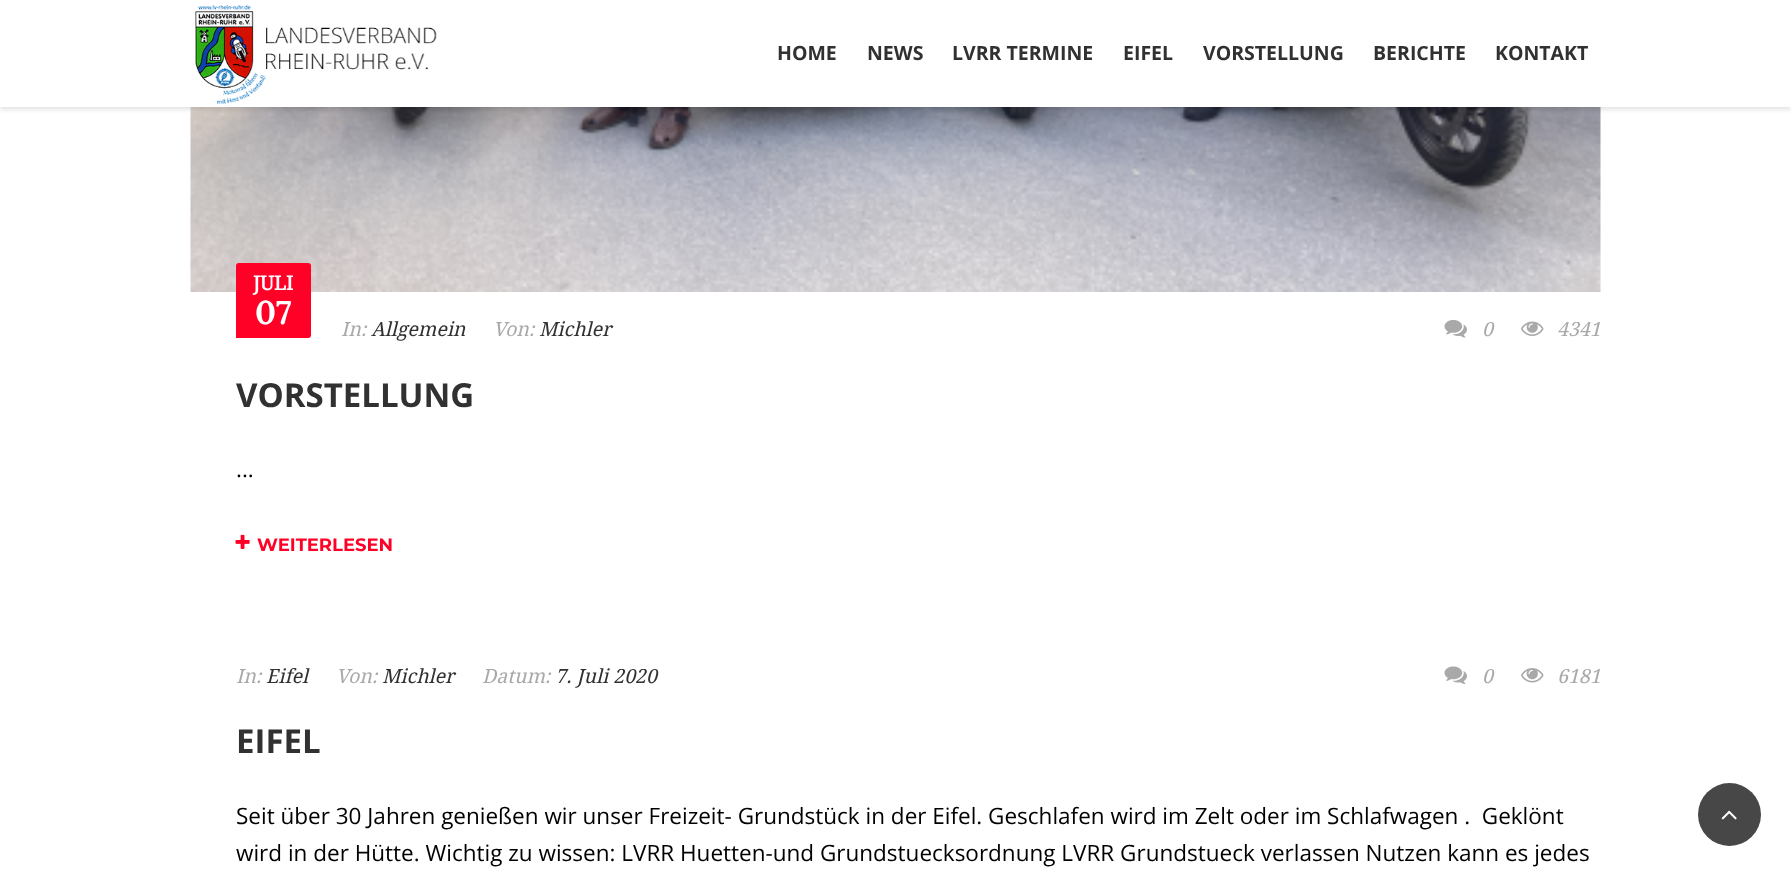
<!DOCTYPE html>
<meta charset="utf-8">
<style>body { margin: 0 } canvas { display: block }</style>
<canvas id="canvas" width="1791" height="890"></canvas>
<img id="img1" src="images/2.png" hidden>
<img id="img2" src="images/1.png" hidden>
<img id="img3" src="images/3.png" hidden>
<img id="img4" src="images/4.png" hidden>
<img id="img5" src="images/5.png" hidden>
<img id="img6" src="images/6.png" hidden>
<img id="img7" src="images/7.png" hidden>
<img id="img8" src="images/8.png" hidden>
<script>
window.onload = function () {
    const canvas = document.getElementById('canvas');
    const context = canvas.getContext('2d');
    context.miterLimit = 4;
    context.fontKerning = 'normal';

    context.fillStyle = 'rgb(255, 255, 255)';
    context.fillRect(0, 0, 1791, 890);
    context.drawImage(document.getElementById('img1'), 190, 107, 1411, 185);
    context.fillStyle = 'rgba(0, 0, 0, 0.1)';
    context.filter = 'blur(2px)';
    context.beginPath();
    context.rect(0, 3, 1791, 107);
    context.fill();
    context.filter = 'none';
    context.fillStyle = 'rgb(255, 255, 255)';
    context.fillRect(0, 0, 1791, 107);
    context.drawImage(document.getElementById('img2'), 195, 5, 242, 99);
    context.fillStyle = 'rgb(255, 0, 39)';
    context.beginPath();
    context.roundRect(236, 263, 75, 75, [3, 3, 3, 0]);
    context.fill();
    context.drawImage(document.getElementById('img3'), 1444, 319, 23, 19);
    context.drawImage(document.getElementById('img4'), 1521, 321, 23, 15);
    context.drawImage(document.getElementById('img5'), 235, 534, 15, 15);
    context.drawImage(document.getElementById('img6'), 1444, 666, 23, 18);
    context.drawImage(document.getElementById('img7'), 1521, 668, 23, 15);
    context.fillStyle = 'rgb(71, 71, 71)';
    context.beginPath();
    context.arc(1729.5, 814.5, 31.5, 0, 2 * Math.PI);
    context.fill();
    context.drawImage(document.getElementById('img8'), 1721, 810, 16, 10);
    context.font = 'bold 19.5px Open Sans';
    context.fillStyle = 'rgb(49, 49, 49)';
    context.fillText('HOME', 777, 60);
    context.fillText('NEWS', 867, 60);
    context.fillText('LVRR TERMINE', 952, 60);
    context.fillText('EIFEL', 1123, 60);
    context.fillText('VORSTELLUNG', 1203, 60);
    context.fillText('BERICHTE', 1373, 60);
    context.fillText('KONTAKT', 1495, 60);
    context.font = 'bold 19.5px Droid Serif';
    context.fillStyle = 'rgb(255, 255, 255)';
    context.fillText('JULI', 253, 290);
    context.font = 'bold 33px Lora';
    context.fillText('07', 255, 324);
    context.font = 'italic 19.5px Droid Serif';
    context.fillStyle = 'rgb(169, 169, 169)';
    context.fillText('In:', 341, 336);
    context.fillStyle = 'rgb(49, 49, 49)';
    context.fillText('Allgemein', 371, 336);
    context.fillStyle = 'rgb(169, 169, 169)';
    context.fillText('Von:', 493, 336);
    context.fillStyle = 'rgb(49, 49, 49)';
    context.fillText('Michler', 539, 336);
    context.fillStyle = 'rgb(169, 169, 169)';
    context.fillText('0', 1482, 336);
    context.fillText('4341', 1557, 336);
    context.font = 'bold 33px Open Sans';
    context.fillStyle = 'rgb(49, 49, 49)';
    context.fillText('VORSTELLUNG', 236, 407);
    context.font = '22.5px Open Sans';
    context.fillStyle = 'rgb(0, 0, 0)';
    context.fillText('...', 236, 477);
    context.font = '100 18px Montserrat';
    context.fillStyle = 'rgb(255, 0, 39)';
    context.fillText('WEITERLESEN', 257, 551);
    context.font = 'italic 19.5px Droid Serif';
    context.fillStyle = 'rgb(169, 169, 169)';
    context.fillText('In:', 236, 683);
    context.fillStyle = 'rgb(49, 49, 49)';
    context.fillText('Eifel', 266, 683);
    context.fillStyle = 'rgb(169, 169, 169)';
    context.fillText('Von:', 336, 683);
    context.fillStyle = 'rgb(49, 49, 49)';
    context.fillText('Michler', 382, 683);
    context.fillStyle = 'rgb(169, 169, 169)';
    context.fillText('Datum:', 482, 683);
    context.fillStyle = 'rgb(49, 49, 49)';
    context.fillText('7. Juli 2020', 555, 683);
    context.fillStyle = 'rgb(169, 169, 169)';
    context.fillText('0', 1482, 683);
    context.fillText('6181', 1557, 683);
    context.font = 'bold 33px Open Sans';
    context.fillStyle = 'rgb(49, 49, 49)';
    context.fillText('EIFEL', 236, 753);
    context.font = '22.5px Open Sans';
    context.fillStyle = 'rgb(0, 0, 0)';
    context.fillText('Seit über 30 Jahren genießen wir unser Freizeit- Grundstück in der Eifel. Geschlafen wird im Zelt oder im Schlafwagen .  Geklönt', 236, 824);
    context.fillText('wird in der Hütte. Wichtig zu wissen: LVRR Huetten-und Grundstuecksordnung LVRR Grundstueck verlassen Nutzen kann es jedes', 236, 861);
};
</script>
